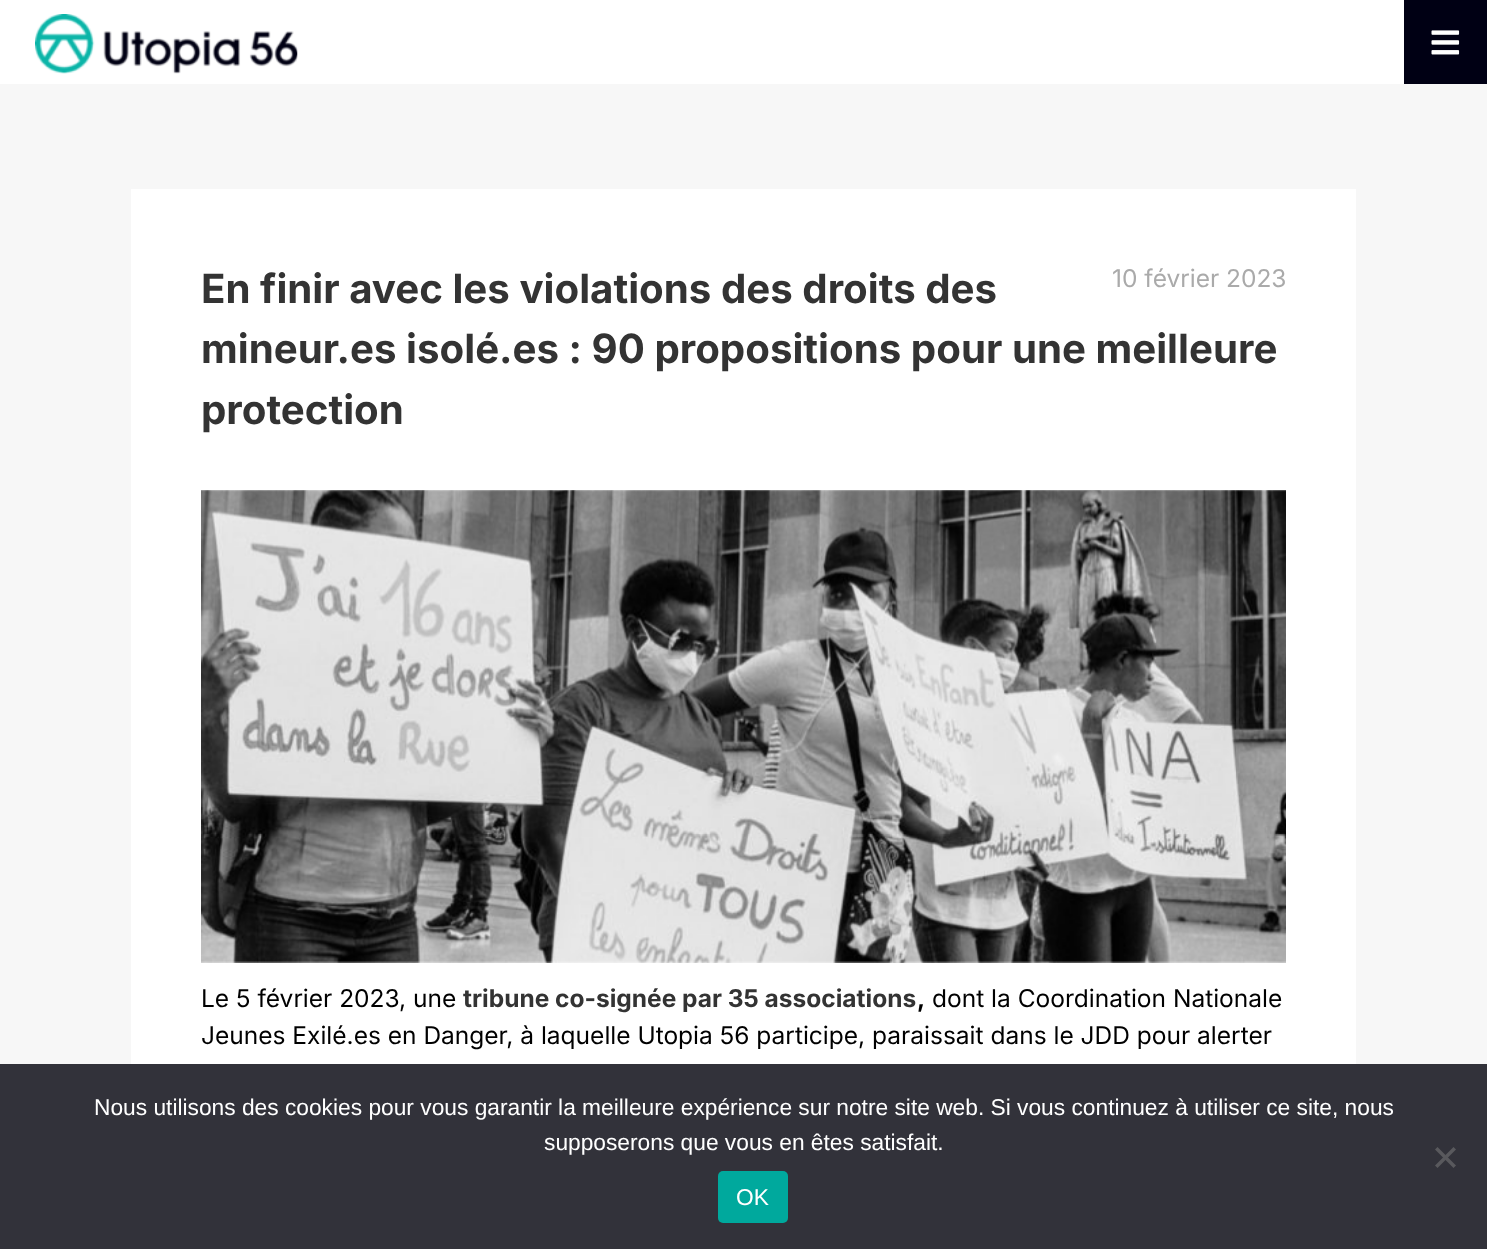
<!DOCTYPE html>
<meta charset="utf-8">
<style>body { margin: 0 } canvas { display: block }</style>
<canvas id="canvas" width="1487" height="1249"></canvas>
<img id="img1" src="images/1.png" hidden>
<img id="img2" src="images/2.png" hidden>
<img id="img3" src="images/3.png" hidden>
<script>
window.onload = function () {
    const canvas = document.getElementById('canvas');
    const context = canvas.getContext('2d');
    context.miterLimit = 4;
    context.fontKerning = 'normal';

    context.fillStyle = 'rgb(255, 255, 255)';
    context.fillRect(0, 0, 1487, 1249);
    context.drawImage(document.getElementById('img1'), 35, 14, 263, 60);
    context.fillStyle = 'rgb(0, 0, 20)';
    context.fillRect(1404, 0, 83, 84);
    context.drawImage(document.getElementById('img2'), 1431, 30, 29, 25);
    context.fillStyle = 'rgb(247, 247, 247)';
    context.fillRect(0, 84, 1487, 980);
    context.fillStyle = 'rgb(255, 255, 255)';
    context.fillRect(131, 189, 1225, 875);
    context.drawImage(document.getElementById('img3'), 201, 490, 1085, 473);
    context.fillStyle = 'rgb(50, 50, 58)';
    context.fillRect(0, 1064, 1487, 185);
    context.fillStyle = 'rgb(89, 89, 93)';
    context.beginPath();
    context.moveTo(1453.5, 1147);
    context.lineTo(1456, 1149.5);
    context.lineTo(1437.5, 1168);
    context.lineTo(1435, 1165.5);
    context.closePath();
    context.fill();
    context.beginPath();
    context.moveTo(1435, 1149.5);
    context.lineTo(1437.5, 1147);
    context.lineTo(1456, 1165.5);
    context.lineTo(1453.5, 1168);
    context.closePath();
    context.fill();
    context.fillStyle = 'rgb(0, 169, 157)';
    context.beginPath();
    context.roundRect(718, 1171, 70, 52, 5);
    context.fill();
    context.font = '24.5px Inter';
    context.fillStyle = 'rgb(170, 170, 170)';
    context.fillText('10 février 2023', 1112, 287);
    context.font = 'bold 40.25px Inter';
    context.fillStyle = 'rgb(51, 51, 51)';
    context.fillText('En finir avec les violations des droits des', 201, 303);
    context.fillText('mineur.es isolé.es : 90 propositions pour une meilleure', 201, 363);
    context.fillText('protection', 201, 424);
    context.font = '24.5px Inter';
    context.fillStyle = 'rgb(0, 0, 0)';
    context.fillText('Le 5 février 2023, une', 201, 1007);
    context.font = 'bold 24.5px Inter';
    context.fillStyle = 'rgb(51, 51, 51)';
    context.fillText('tribune co-signée par 35 associations', 463, 1007);
    context.fillStyle = 'rgb(0, 0, 0)';
    context.fillText(',', 917, 1007);
    context.font = '24.5px Inter';
    context.fillText('dont la Coordination Nationale', 932, 1007);
    context.fillText('Jeunes Exilé.es en Danger, à laquelle Utopia 56 participe, paraissait dans le JDD pour alerter', 201, 1044);
    context.font = '22.75px Liberation Sans';
    context.fillStyle = 'rgb(255, 255, 255)';
    context.fillText('Nous utilisons des cookies pour vous garantir la meilleure expérience sur notre site web. Si vous continuez à utiliser ce site, nous', 94, 1115);
    context.fillText('supposerons que vous en êtes satisfait.', 544, 1150);
    context.fillText('OK', 736, 1205);
};
</script>
